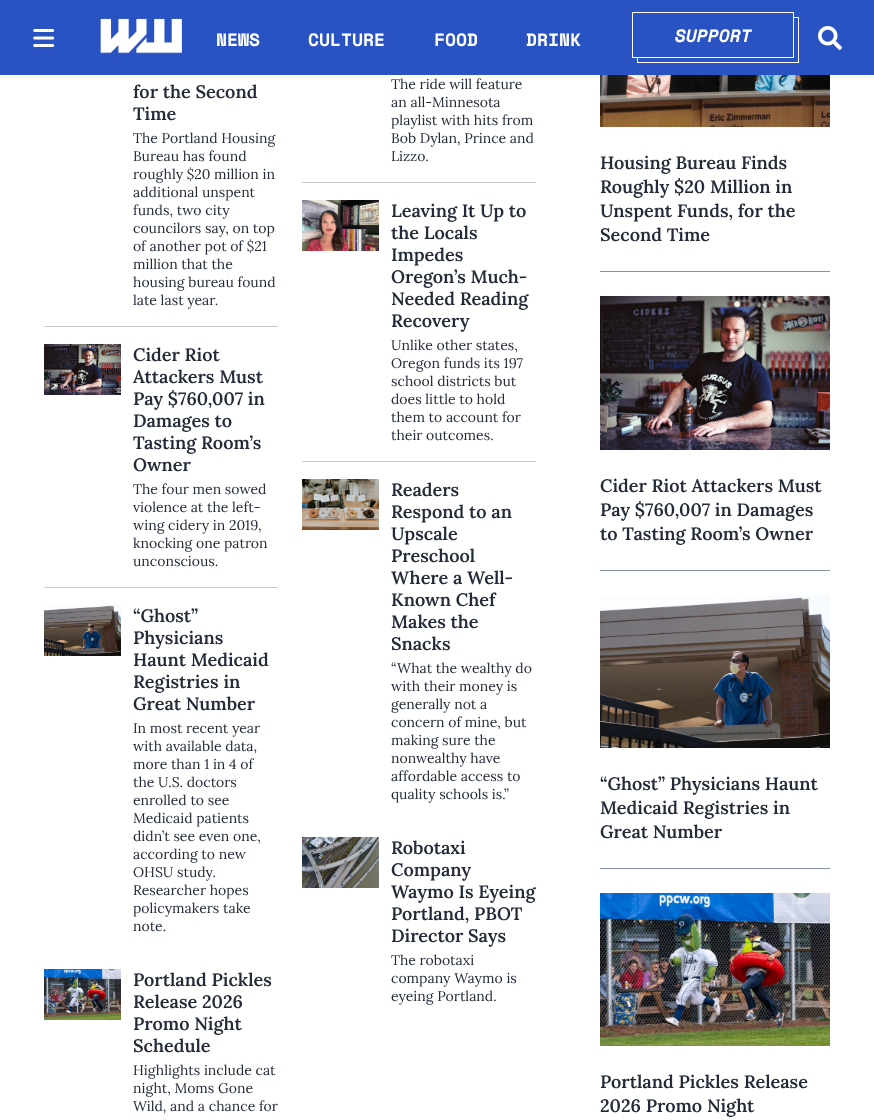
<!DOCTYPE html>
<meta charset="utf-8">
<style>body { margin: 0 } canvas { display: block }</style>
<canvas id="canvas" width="874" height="1120"></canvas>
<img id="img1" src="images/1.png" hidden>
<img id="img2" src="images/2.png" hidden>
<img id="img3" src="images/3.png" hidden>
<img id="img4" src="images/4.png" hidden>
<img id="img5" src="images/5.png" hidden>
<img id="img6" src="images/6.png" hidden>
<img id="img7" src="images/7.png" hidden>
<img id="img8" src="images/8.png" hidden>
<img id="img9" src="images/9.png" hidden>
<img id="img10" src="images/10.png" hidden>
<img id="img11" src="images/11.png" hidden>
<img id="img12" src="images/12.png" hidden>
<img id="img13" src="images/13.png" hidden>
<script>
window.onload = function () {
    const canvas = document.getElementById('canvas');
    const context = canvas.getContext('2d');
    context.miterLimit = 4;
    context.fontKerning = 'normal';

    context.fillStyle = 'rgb(255, 255, 255)';
    context.fillRect(0, 0, 874, 1120);
    context.fillStyle = 'rgb(41, 82, 194)';
    context.fillRect(0, 0, 874, 75);
    context.drawImage(document.getElementById('img1'), 33, 29, 22, 18);
    context.drawImage(document.getElementById('img2'), 100, 18, 82, 36);
    context.strokeStyle = 'rgb(255, 255, 255)';
    context.strokeRect(637.5, 17.5, 161, 45);
    context.fillRect(637, 17, 156, 40);
    context.strokeRect(632.5, 12.5, 161, 45);
    context.drawImage(document.getElementById('img3'), 818, 26, 24, 24);
    context.fillStyle = 'rgb(204, 203, 198)';
    context.fillRect(44, 326, 234, 1);
    context.drawImage(document.getElementById('img4'), 44, 344, 77, 51);
    context.fillRect(44, 587, 234, 1);
    context.drawImage(document.getElementById('img5'), 44, 605, 77, 51);
    context.drawImage(document.getElementById('img6'), 44, 969, 77, 51);
    context.fillRect(302, 182, 234, 1);
    context.drawImage(document.getElementById('img7'), 302, 200, 77, 51);
    context.fillRect(302, 461, 234, 1);
    context.drawImage(document.getElementById('img8'), 302, 479, 77, 51);
    context.drawImage(document.getElementById('img9'), 302, 837, 77, 51);
    context.drawImage(document.getElementById('img10'), 600, 75, 230, 52);
    context.fillStyle = 'rgb(133, 147, 170)';
    context.fillRect(600, 271, 230, 1);
    context.drawImage(document.getElementById('img11'), 600, 296, 230, 154);
    context.fillRect(600, 570, 230, 1);
    context.drawImage(document.getElementById('img12'), 600, 595, 230, 153);
    context.fillRect(600, 868, 230, 1);
    context.drawImage(document.getElementById('img13'), 600, 893, 230, 153);
    context.font = 'bold 18px Space Mono';
    context.fillStyle = 'rgb(255, 255, 255)';
    context.fillText('NEWS', 216, 46);
    context.fillText('CULTURE', 308, 46);
    context.fillText('FOOD', 434, 46);
    context.fillText('DRINK', 526, 46);
    context.font = 'italic bold 18px Space Mono';
    context.fillText('SUPPORT', 675, 42);
    context.font = '600 18px Lora';
    context.fillStyle = 'rgb(35, 43, 57)';
    context.fillText('for the Second', 133, 98);
    context.fillText('Time', 133, 120);
    context.font = '14px Lora';
    context.fillText('The Portland Housing', 133, 143);
    context.fillText('Bureau has found', 133, 161);
    context.fillText('roughly $20 million in', 133, 179);
    context.fillText('additional unspent', 133, 197);
    context.fillText('funds, two city', 133, 215);
    context.fillText('councilors say, on top', 133, 233);
    context.fillText('of another pot of $21', 133, 251);
    context.fillText('million that the', 133, 269);
    context.fillText('housing bureau found', 133, 287);
    context.fillText('late last year.', 133, 305);
    context.font = '600 18px Lora';
    context.fillText('Cider Riot', 133, 361);
    context.fillText('Attackers Must', 133, 383);
    context.fillText('Pay $760,007 in', 133, 405);
    context.fillText('Damages to', 133, 427);
    context.fillText('Tasting Room’s', 133, 449);
    context.fillText('Owner', 133, 471);
    context.font = '14px Lora';
    context.fillText('The four men sowed', 133, 494);
    context.fillText('violence at the left-', 133, 512);
    context.fillText('wing cidery in 2019,', 133, 530);
    context.fillText('knocking one patron', 133, 548);
    context.fillText('unconscious.', 133, 566);
    context.font = '600 18px Lora';
    context.fillText('“Ghost”', 133, 622);
    context.fillText('Physicians', 133, 644);
    context.fillText('Haunt Medicaid', 133, 666);
    context.fillText('Registries in', 133, 688);
    context.fillText('Great Number', 133, 710);
    context.font = '14px Lora';
    context.fillText('In most recent year', 133, 733);
    context.fillText('with available data,', 133, 751);
    context.fillText('more than 1 in 4 of', 133, 769);
    context.fillText('the U.S. doctors', 133, 787);
    context.fillText('enrolled to see', 133, 805);
    context.fillText('Medicaid patients', 133, 823);
    context.fillText('didn’t see even one,', 133, 841);
    context.fillText('according to new', 133, 859);
    context.fillText('OHSU study.', 133, 877);
    context.fillText('Researcher hopes', 133, 895);
    context.fillText('policymakers take', 133, 913);
    context.fillText('note.', 133, 931);
    context.font = '600 18px Lora';
    context.fillText('Portland Pickles', 133, 986);
    context.fillText('Release 2026', 133, 1008);
    context.fillText('Promo Night', 133, 1030);
    context.fillText('Schedule', 133, 1052);
    context.font = '14px Lora';
    context.fillText('Highlights include cat', 133, 1075);
    context.fillText('night, Moms Gone', 133, 1093);
    context.fillText('Wild, and a chance for', 133, 1111);
    context.fillText('The ride will feature', 391, 89);
    context.fillText('an all-Minnesota', 391, 107);
    context.fillText('playlist with hits from', 391, 125);
    context.fillText('Bob Dylan, Prince and', 391, 143);
    context.fillText('Lizzo.', 391, 161);
    context.font = '600 18px Lora';
    context.fillText('Leaving It Up to', 391, 217);
    context.fillText('the Locals', 391, 239);
    context.fillText('Impedes', 391, 261);
    context.fillText('Oregon’s Much-', 391, 283);
    context.fillText('Needed Reading', 391, 305);
    context.fillText('Recovery', 391, 327);
    context.font = '14px Lora';
    context.fillText('Unlike other states,', 391, 350);
    context.fillText('Oregon funds its 197', 391, 368);
    context.fillText('school districts but', 391, 386);
    context.fillText('does little to hold', 391, 404);
    context.fillText('them to account for', 391, 422);
    context.fillText('their outcomes.', 391, 440);
    context.font = '600 18px Lora';
    context.fillText('Readers', 391, 496);
    context.fillText('Respond to an', 391, 518);
    context.fillText('Upscale', 391, 540);
    context.fillText('Preschool', 391, 562);
    context.fillText('Where a Well-', 391, 584);
    context.fillText('Known Chef', 391, 606);
    context.fillText('Makes the', 391, 628);
    context.fillText('Snacks', 391, 650);
    context.font = '14px Lora';
    context.fillText('“What the wealthy do', 391, 673);
    context.fillText('with their money is', 391, 691);
    context.fillText('generally not a', 391, 709);
    context.fillText('concern of mine, but', 391, 727);
    context.fillText('making sure the', 391, 745);
    context.fillText('nonwealthy have', 391, 763);
    context.fillText('affordable access to', 391, 781);
    context.fillText('quality schools is.”', 391, 799);
    context.font = '600 18px Lora';
    context.fillText('Robotaxi', 391, 854);
    context.fillText('Company', 391, 876);
    context.fillText('Waymo Is Eyeing', 391, 898);
    context.fillText('Portland, PBOT', 391, 920);
    context.fillText('Director Says', 391, 942);
    context.font = '14px Lora';
    context.fillText('The robotaxi', 391, 965);
    context.fillText('company Waymo is', 391, 983);
    context.fillText('eyeing Portland.', 391, 1001);
    context.font = '600 18px Lora';
    context.fillText('Housing Bureau Finds', 600, 169);
    context.fillText('Roughly $20 Million in', 600, 193);
    context.fillText('Unspent Funds, for the', 600, 217);
    context.fillText('Second Time', 600, 241);
    context.fillText('Cider Riot Attackers Must', 600, 492);
    context.fillText('Pay $760,007 in Damages', 600, 516);
    context.fillText('to Tasting Room’s Owner', 600, 540);
    context.fillText('“Ghost” Physicians Haunt', 600, 790);
    context.fillText('Medicaid Registries in', 600, 814);
    context.fillText('Great Number', 600, 838);
    context.fillText('Portland Pickles Release', 600, 1088);
    context.fillText('2026 Promo Night', 600, 1112);
};
</script>
